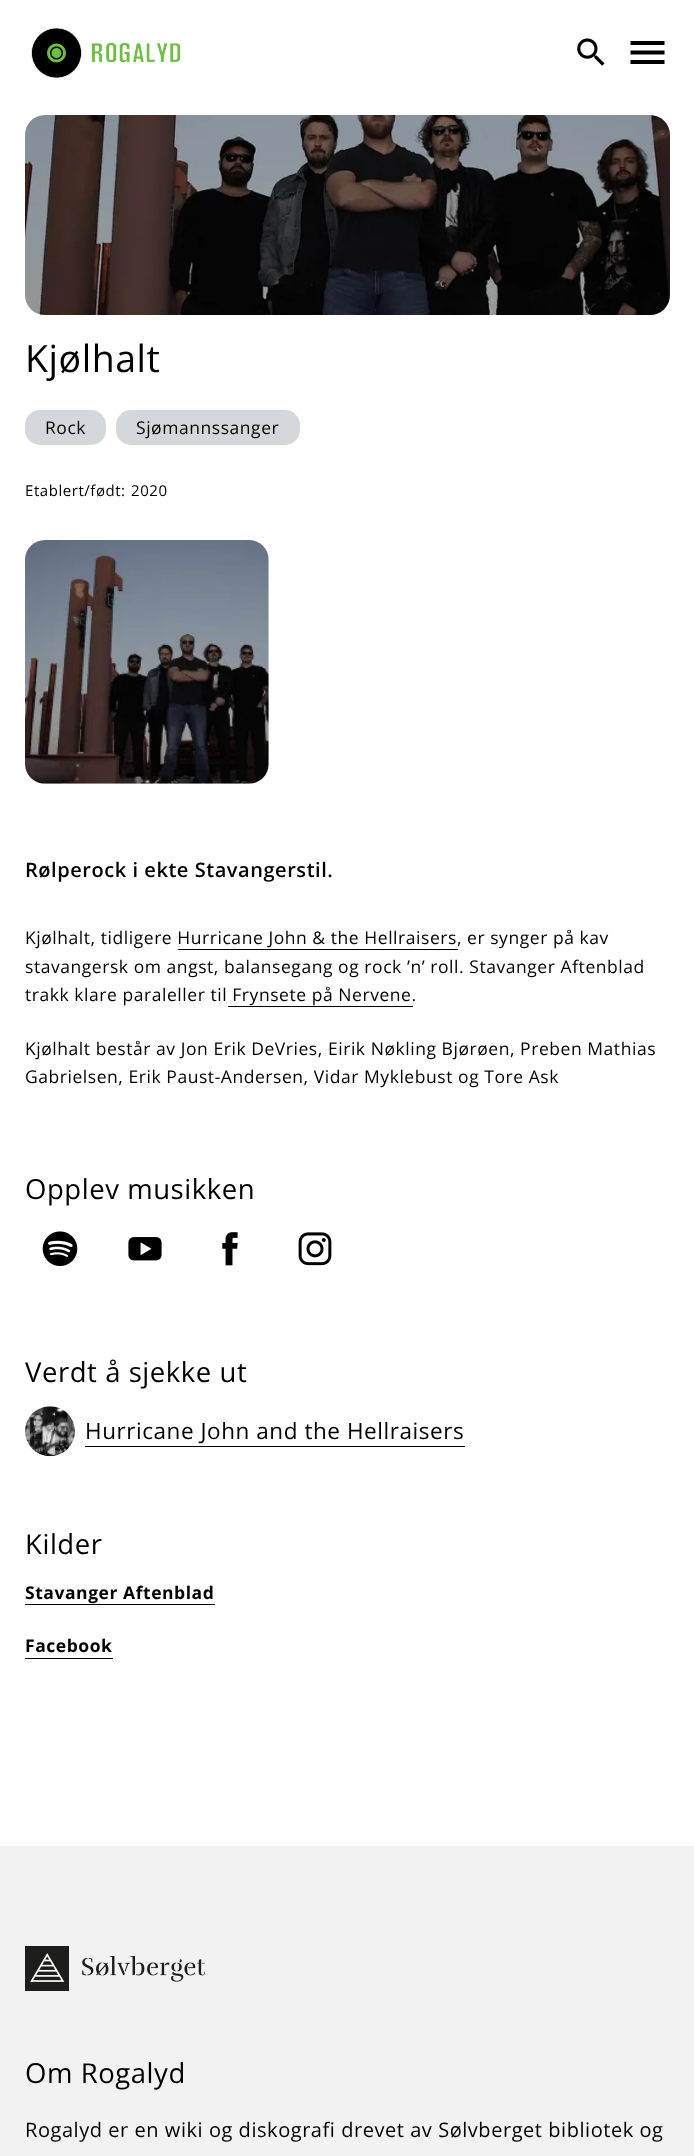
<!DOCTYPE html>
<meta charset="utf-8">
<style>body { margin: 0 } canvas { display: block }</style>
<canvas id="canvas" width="694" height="2156"></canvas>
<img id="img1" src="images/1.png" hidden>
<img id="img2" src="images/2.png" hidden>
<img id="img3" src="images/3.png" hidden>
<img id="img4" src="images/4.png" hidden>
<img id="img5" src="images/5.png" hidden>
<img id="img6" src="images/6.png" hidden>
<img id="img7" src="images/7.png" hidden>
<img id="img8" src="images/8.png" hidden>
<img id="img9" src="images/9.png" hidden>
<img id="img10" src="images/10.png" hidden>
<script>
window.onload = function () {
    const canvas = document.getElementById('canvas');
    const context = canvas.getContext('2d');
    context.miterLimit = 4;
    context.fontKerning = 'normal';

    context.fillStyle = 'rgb(255, 255, 255)';
    context.fillRect(0, 0, 694, 2156);
    context.drawImage(document.getElementById('img1'), 31, 28, 150, 50);
    context.drawImage(document.getElementById('img2'), 577, 38, 28, 28);
    context.fillStyle = 'rgb(0, 0, 0)';
    context.beginPath();
    context.moveTo(630.5, 64);
    context.lineTo(664.5, 64);
    context.lineTo(664.5, 60);
    context.lineTo(630.5, 60);
    context.closePath();
    context.moveTo(630.5, 54.5);
    context.lineTo(664.5, 54.5);
    context.lineTo(664.5, 50.5);
    context.lineTo(630.5, 50.5);
    context.closePath();
    context.moveTo(630.5, 41);
    context.lineTo(630.5, 45);
    context.lineTo(664.5, 45);
    context.lineTo(664.5, 41);
    context.closePath();
    context.fill();
    context.drawImage(document.getElementById('img3'), 25, 115, 645, 200);
    context.fillStyle = 'rgb(212, 215, 220)';
    context.beginPath();
    context.roundRect(25, 410, 81, 35, 15);
    context.fill();
    context.beginPath();
    context.roundRect(116, 410, 184, 35, 15);
    context.fill();
    context.drawImage(document.getElementById('img4'), 25, 540, 244, 244);
    context.fillStyle = 'rgb(0, 0, 0)';
    context.fillRect(178, 949, 280, 1);
    context.fillRect(228, 1006, 185, 1);
    context.drawImage(document.getElementById('img5'), 42, 1231, 36, 35);
    context.drawImage(document.getElementById('img6'), 128, 1237, 34, 24);
    context.drawImage(document.getElementById('img7'), 222, 1232, 16, 34);
    context.drawImage(document.getElementById('img8'), 298, 1232, 34, 34);
    context.drawImage(document.getElementById('img9'), 25, 1406, 50, 51);
    context.fillRect(85, 1446, 380, 1);
    context.fillRect(25, 1604, 190, 1);
    context.fillRect(25, 1658, 88, 1);
    context.fillStyle = 'rgb(242, 242, 242)';
    context.fillRect(0, 1846, 694, 310);
    context.drawImage(document.getElementById('img10'), 25, 1946, 180, 45);
    context.letterSpacing = '0.55px';
    context.font = '37.5px Open Sans';
    context.fillStyle = 'rgb(0, 0, 0)';
    context.fillText('Kjølhalt', 25, 372);
    context.font = '17.5px Open Sans';
    context.fillText('Rock', 45, 434);
    context.fillText('Sjømannssanger', 136, 434);
    context.font = '15px Open Sans';
    context.fillText('Etablert/født:', 25, 496);
    context.fillText('2020', 131, 496);
    context.font = '600 20px Open Sans';
    context.fillText('Rølperock i ekte Stavangerstil.', 25, 877);
    context.font = '17.5px Open Sans';
    context.fillText('Kjølhalt, tidligere Hurricane John & the Hellraisers, er synger på kav', 25, 944);
    context.fillText('stavangersk om angst, balansegang og rock ’n’ roll. Stavanger Aftenblad', 25, 973);
    context.fillText('trakk klare paraleller til Frynsete på Nervene.', 25, 1001);
    context.fillText('Kjølhalt består av Jon Erik DeVries, Eirik Nøkling Bjørøen, Preben Mathias', 25, 1055);
    context.fillText('Gabrielsen, Erik Paust-Andersen, Vidar Myklebust og Tore Ask', 25, 1083);
    context.font = '27.5px Open Sans';
    context.fillText('Opplev musikken', 25, 1199);
    context.fillText('Verdt å sjekke ut', 25, 1382);
    context.font = '22.5px Open Sans';
    context.fillText('Hurricane John and the Hellraisers', 85, 1439);
    context.font = '27.5px Open Sans';
    context.fillText('Kilder', 25, 1554);
    context.font = 'bold 17.5px Open Sans';
    context.fillText('Stavanger Aftenblad', 25, 1599);
    context.fillText('Facebook', 25, 1652);
    context.font = '27.5px Open Sans';
    context.fillText('Om Rogalyd', 25, 2083);
    context.font = '20px Open Sans';
    context.fillText('Rogalyd er en wiki og diskografi drevet av Sølvberget bibliotek og', 25, 2137);
};
</script>
